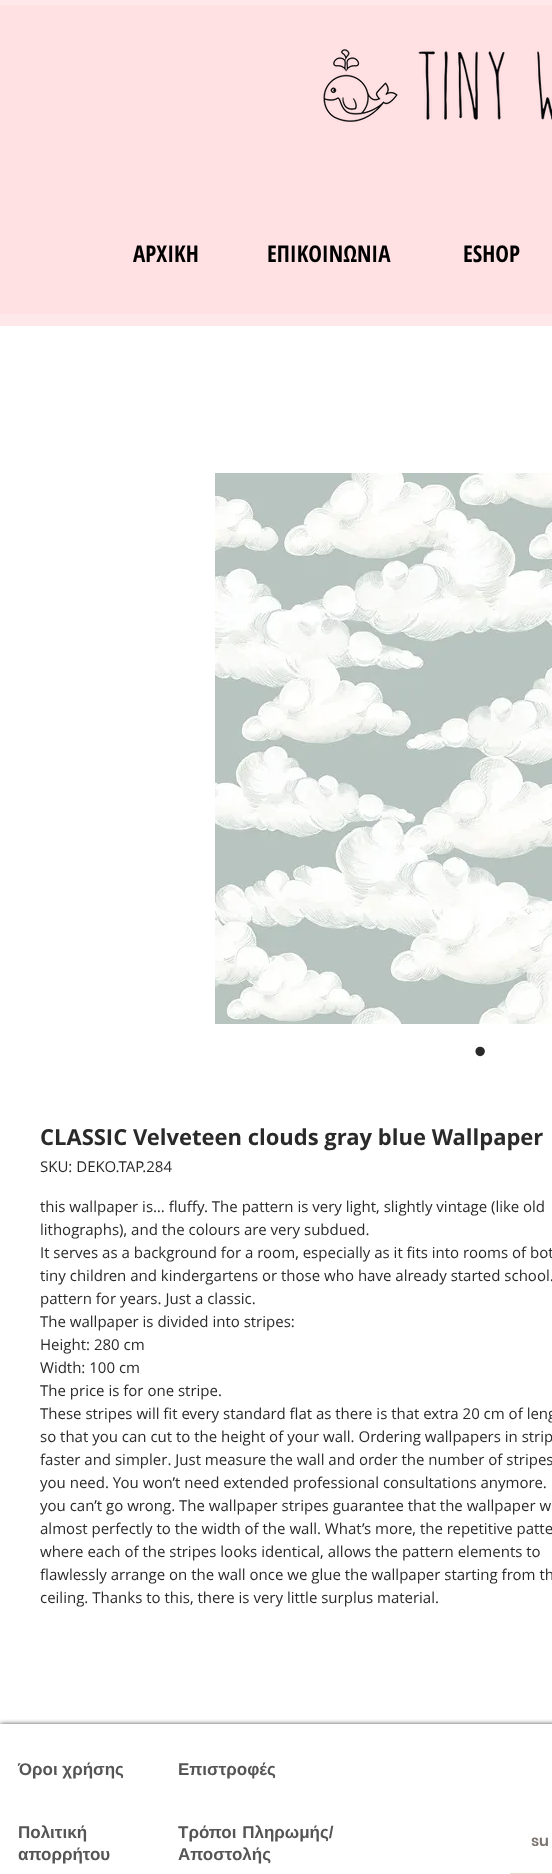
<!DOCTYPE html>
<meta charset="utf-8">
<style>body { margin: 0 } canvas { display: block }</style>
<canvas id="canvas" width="552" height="1874"></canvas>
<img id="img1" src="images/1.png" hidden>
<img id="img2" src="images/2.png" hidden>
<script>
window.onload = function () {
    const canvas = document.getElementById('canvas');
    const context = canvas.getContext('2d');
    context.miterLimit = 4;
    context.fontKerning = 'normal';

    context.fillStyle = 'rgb(255, 255, 255)';
    context.fillRect(0, 0, 552, 1874);
    context.fillStyle = 'rgb(255, 224, 227)';
    context.fillRect(0, 5, 552, 309);
    context.fillStyle = 'rgb(255, 232, 234)';
    context.fillRect(0, 0, 552, 5);
    context.fillRect(0, 314, 552, 12);
    context.drawImage(document.getElementById('img1'), 323, 49, 229, 73);
    context.drawImage(document.getElementById('img2'), 215, 473, 337, 551);
    context.save();
    context.beginPath();
    context.rect(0, 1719, 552, 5);
    context.clip();
    context.fillStyle = 'rgba(0, 0, 0, 0.7)';
    context.filter = 'blur(2.5px)';
    context.beginPath();
    context.rect(0, 1724, 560, 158);
    context.fill();
    context.filter = 'none';
    context.restore();
    context.fillStyle = 'rgb(230, 222, 202)';
    context.fillRect(510, 1873, 42, 1);
    context.font = 'bold 23px Open Sans Condensed';
    context.fillStyle = 'rgb(0, 0, 0)';
    context.fillText('ΑΡΧΙΚΗ', 133, 262);
    context.fillText('ΕΠΙΚΟΙΝΩΝΙΑ', 267, 262);
    context.fillText('ESHOP', 463, 262);
    context.font = '35px Liberation Sans';
    context.fillStyle = 'rgb(42, 42, 42)';
    context.fillText('•', 474, 1063);
    context.font = 'bold 22px Open Sans';
    context.fillText('CLASSIC Velveteen clouds gray blue Wallpaper', 40, 1145);
    context.font = '15px Open Sans';
    context.fillText('SKU: DEKO.TAP.284', 40, 1172);
    context.fillText('this wallpaper is… fluffy. The pattern is very light, slightly vintage (like old', 40, 1212);
    context.fillText('lithographs), and the colours are very subdued.', 40, 1235);
    context.fillText('It serves as a background for a room, especially as it fits into rooms of bot', 40, 1258);
    context.fillText('tiny children and kindergartens or those who have already started school.', 40, 1281);
    context.fillText('pattern for years. Just a classic.', 40, 1304);
    context.fillText('The wallpaper is divided into stripes:', 40, 1327);
    context.fillText('Height: 280 cm', 40, 1350);
    context.fillText('Width: 100 cm', 40, 1373);
    context.fillText('The price is for one stripe.', 40, 1396);
    context.fillText('These stripes will fit every standard flat as there is that extra 20 cm of leng', 40, 1419);
    context.fillText('so that you can cut to the height of your wall. Ordering wallpapers in strip', 40, 1442);
    context.fillText('faster and simpler. Just measure the wall and order the number of stripes', 40, 1465);
    context.fillText('you need. You won’t need extended professional consultations anymore.', 40, 1488);
    context.fillText('you can’t go wrong. The wallpaper stripes guarantee that the wallpaper w', 40, 1511);
    context.fillText('almost perfectly to the width of the wall. What’s more, the repetitive patte', 40, 1534);
    context.fillText('where each of the stripes looks identical, allows the pattern elements to', 40, 1557);
    context.fillText('flawlessly arrange on the wall once we glue the wallpaper starting from th', 40, 1580);
    context.fillText('ceiling. Thanks to this, there is very little surplus material.', 40, 1603);
    context.font = 'bold 17px Liberation Sans';
    context.fillStyle = 'rgb(85, 85, 85)';
    context.fillText('Όροι χρήσης', 18, 1775);
    context.fillText('Επιστροφές', 178, 1775);
    context.fillText('Πολιτική', 18, 1838);
    context.fillText('απορρήτου', 18, 1860);
    context.wordSpacing = '1px';
    context.fillText('Τρόποι Πληρωμής/', 178, 1838);
    context.wordSpacing = '0px';
    context.fillText('Αποστολής', 178, 1860);
    context.font = '600 15px Poppins';
    context.fillStyle = 'rgb(122, 115, 111)';
    context.fillText('su', 531, 1846);
};
</script>
